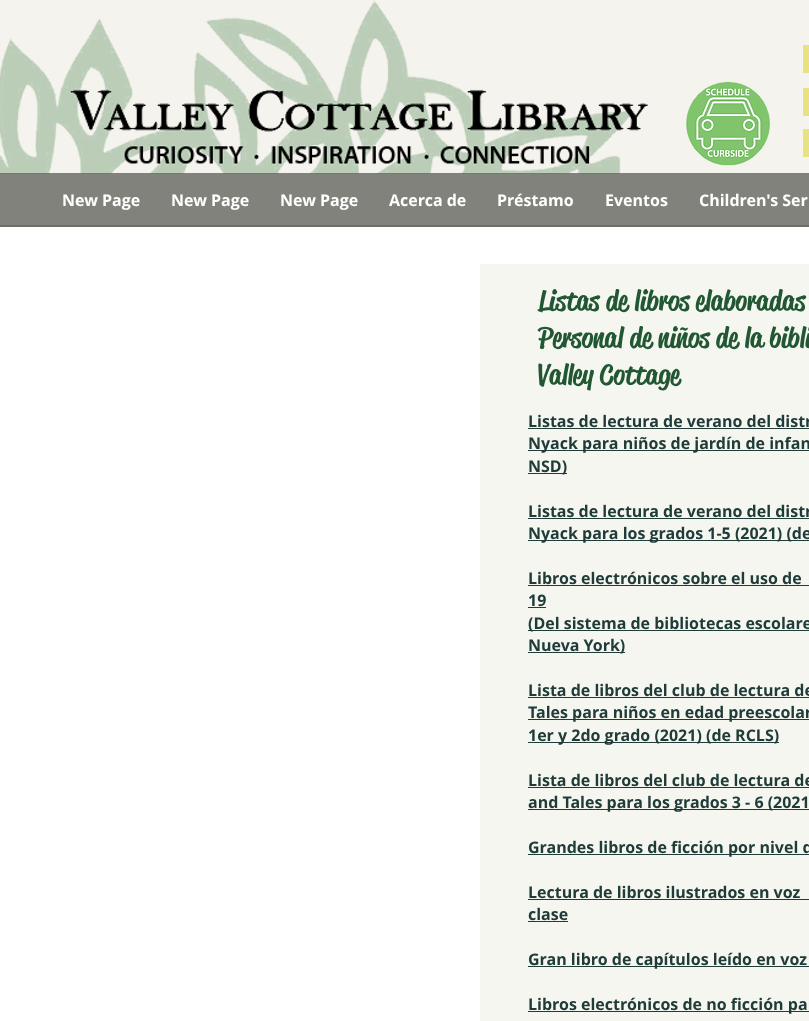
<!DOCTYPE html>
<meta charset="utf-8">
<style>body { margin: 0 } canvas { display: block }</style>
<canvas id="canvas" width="809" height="1021"></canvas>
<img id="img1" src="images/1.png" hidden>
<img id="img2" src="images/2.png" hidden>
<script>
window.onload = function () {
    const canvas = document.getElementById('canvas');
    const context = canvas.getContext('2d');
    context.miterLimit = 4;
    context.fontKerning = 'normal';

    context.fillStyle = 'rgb(255, 255, 255)';
    context.fillRect(0, 0, 809, 1021);
    context.fillStyle = 'rgb(244, 243, 237)';
    context.fillRect(0, 0, 809, 225);
    context.fillStyle = 'rgb(146, 146, 142)';
    context.fillRect(0, 225, 809, 2);
    context.drawImage(document.getElementById('img1'), 0, 0, 648, 174);
    context.fillStyle = 'rgb(234, 225, 130)';
    context.fillRect(803, 45, 6, 28);
    context.drawImage(document.getElementById('img2'), 686, 81, 84, 85);
    context.fillRect(803, 88, 6, 28);
    context.fillRect(803, 129, 6, 28);
    context.fillStyle = 'rgba(97, 97, 94, 0.78)';
    context.fillRect(0, 173, 809, 54);
    context.fillStyle = 'rgb(246, 246, 241)';
    context.fillRect(480, 264, 329, 757);
    context.fillStyle = 'rgb(32, 60, 57)';
    context.fillRect(528, 428, 281, 1);
    context.fillRect(528, 450, 281, 1);
    context.fillRect(528, 473, 39, 1);
    context.fillRect(528, 518, 281, 1);
    context.fillRect(528, 540, 281, 1);
    context.fillRect(528, 585, 281, 1);
    context.fillRect(528, 607, 18, 1);
    context.fillRect(528, 630, 281, 1);
    context.fillRect(528, 652, 97, 1);
    context.fillRect(528, 697, 281, 1);
    context.fillRect(528, 719, 281, 1);
    context.fillRect(528, 742, 251, 1);
    context.fillRect(528, 787, 281, 1);
    context.fillRect(528, 809, 281, 1);
    context.fillRect(528, 854, 281, 1);
    context.fillRect(528, 899, 281, 1);
    context.fillRect(528, 921, 40, 1);
    context.fillRect(528, 966, 281, 1);
    context.fillRect(528, 1011, 281, 1);
    context.font = 'bold 16px Open Sans';
    context.fillStyle = 'rgb(255, 255, 255)';
    context.fillText('New Page', 62, 206);
    context.fillText('New Page', 171, 206);
    context.fillText('New Page', 280, 206);
    context.fillText('Acerca de', 389, 206);
    context.fillText('Préstamo', 497, 206);
    context.fillText('Eventos', 605, 206);
    context.fillText('Children\'s Ser', 699, 206);
    context.font = '500 28px "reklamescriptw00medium"';
    context.fillStyle = 'rgb(33, 87, 50)';
    context.fillText('Listas de libros elaboradas', 538, 310);
    context.fillText('Personal de niños de la bibli', 538, 347);
    context.fillText('Valley Cottage', 538, 384);
    context.font = 'bold 16px Open Sans';
    context.fillStyle = 'rgb(32, 60, 57)';
    context.fillText('Listas de lectura de verano del distr', 528, 427);
    context.fillText('Nyack para niños de jardín de infan', 528, 449);
    context.fillText('NSD)', 528, 472);
    context.fillText('Listas de lectura de verano del distr', 528, 517);
    context.fillText('Nyack para los grados 1-5 (2021) (de', 528, 539);
    context.fillText('Libros electrónicos sobre el uso de', 528, 584);
    context.fillText('19', 528, 606);
    context.fillText('(Del sistema de bibliotecas escolare', 528, 629);
    context.fillText('Nueva York)', 528, 651);
    context.fillText('Lista de libros del club de lectura de', 528, 696);
    context.fillText('Tales para niños en edad preescolar', 528, 718);
    context.fillText('1er y 2do grado (2021) (de RCLS)', 528, 741);
    context.fillText('Lista de libros del club de lectura de', 528, 786);
    context.fillText('and Tales para los grados 3 - 6 (2021', 528, 808);
    context.fillText('Grandes libros de ficción por nivel d', 528, 853);
    context.fillText('Lectura de libros ilustrados en voz', 528, 898);
    context.fillText('clase', 528, 920);
    context.fillText('Gran libro de capítulos leído en voz', 528, 965);
    context.fillText('Libros electrónicos de no ficción pa', 528, 1010);
};
</script>
